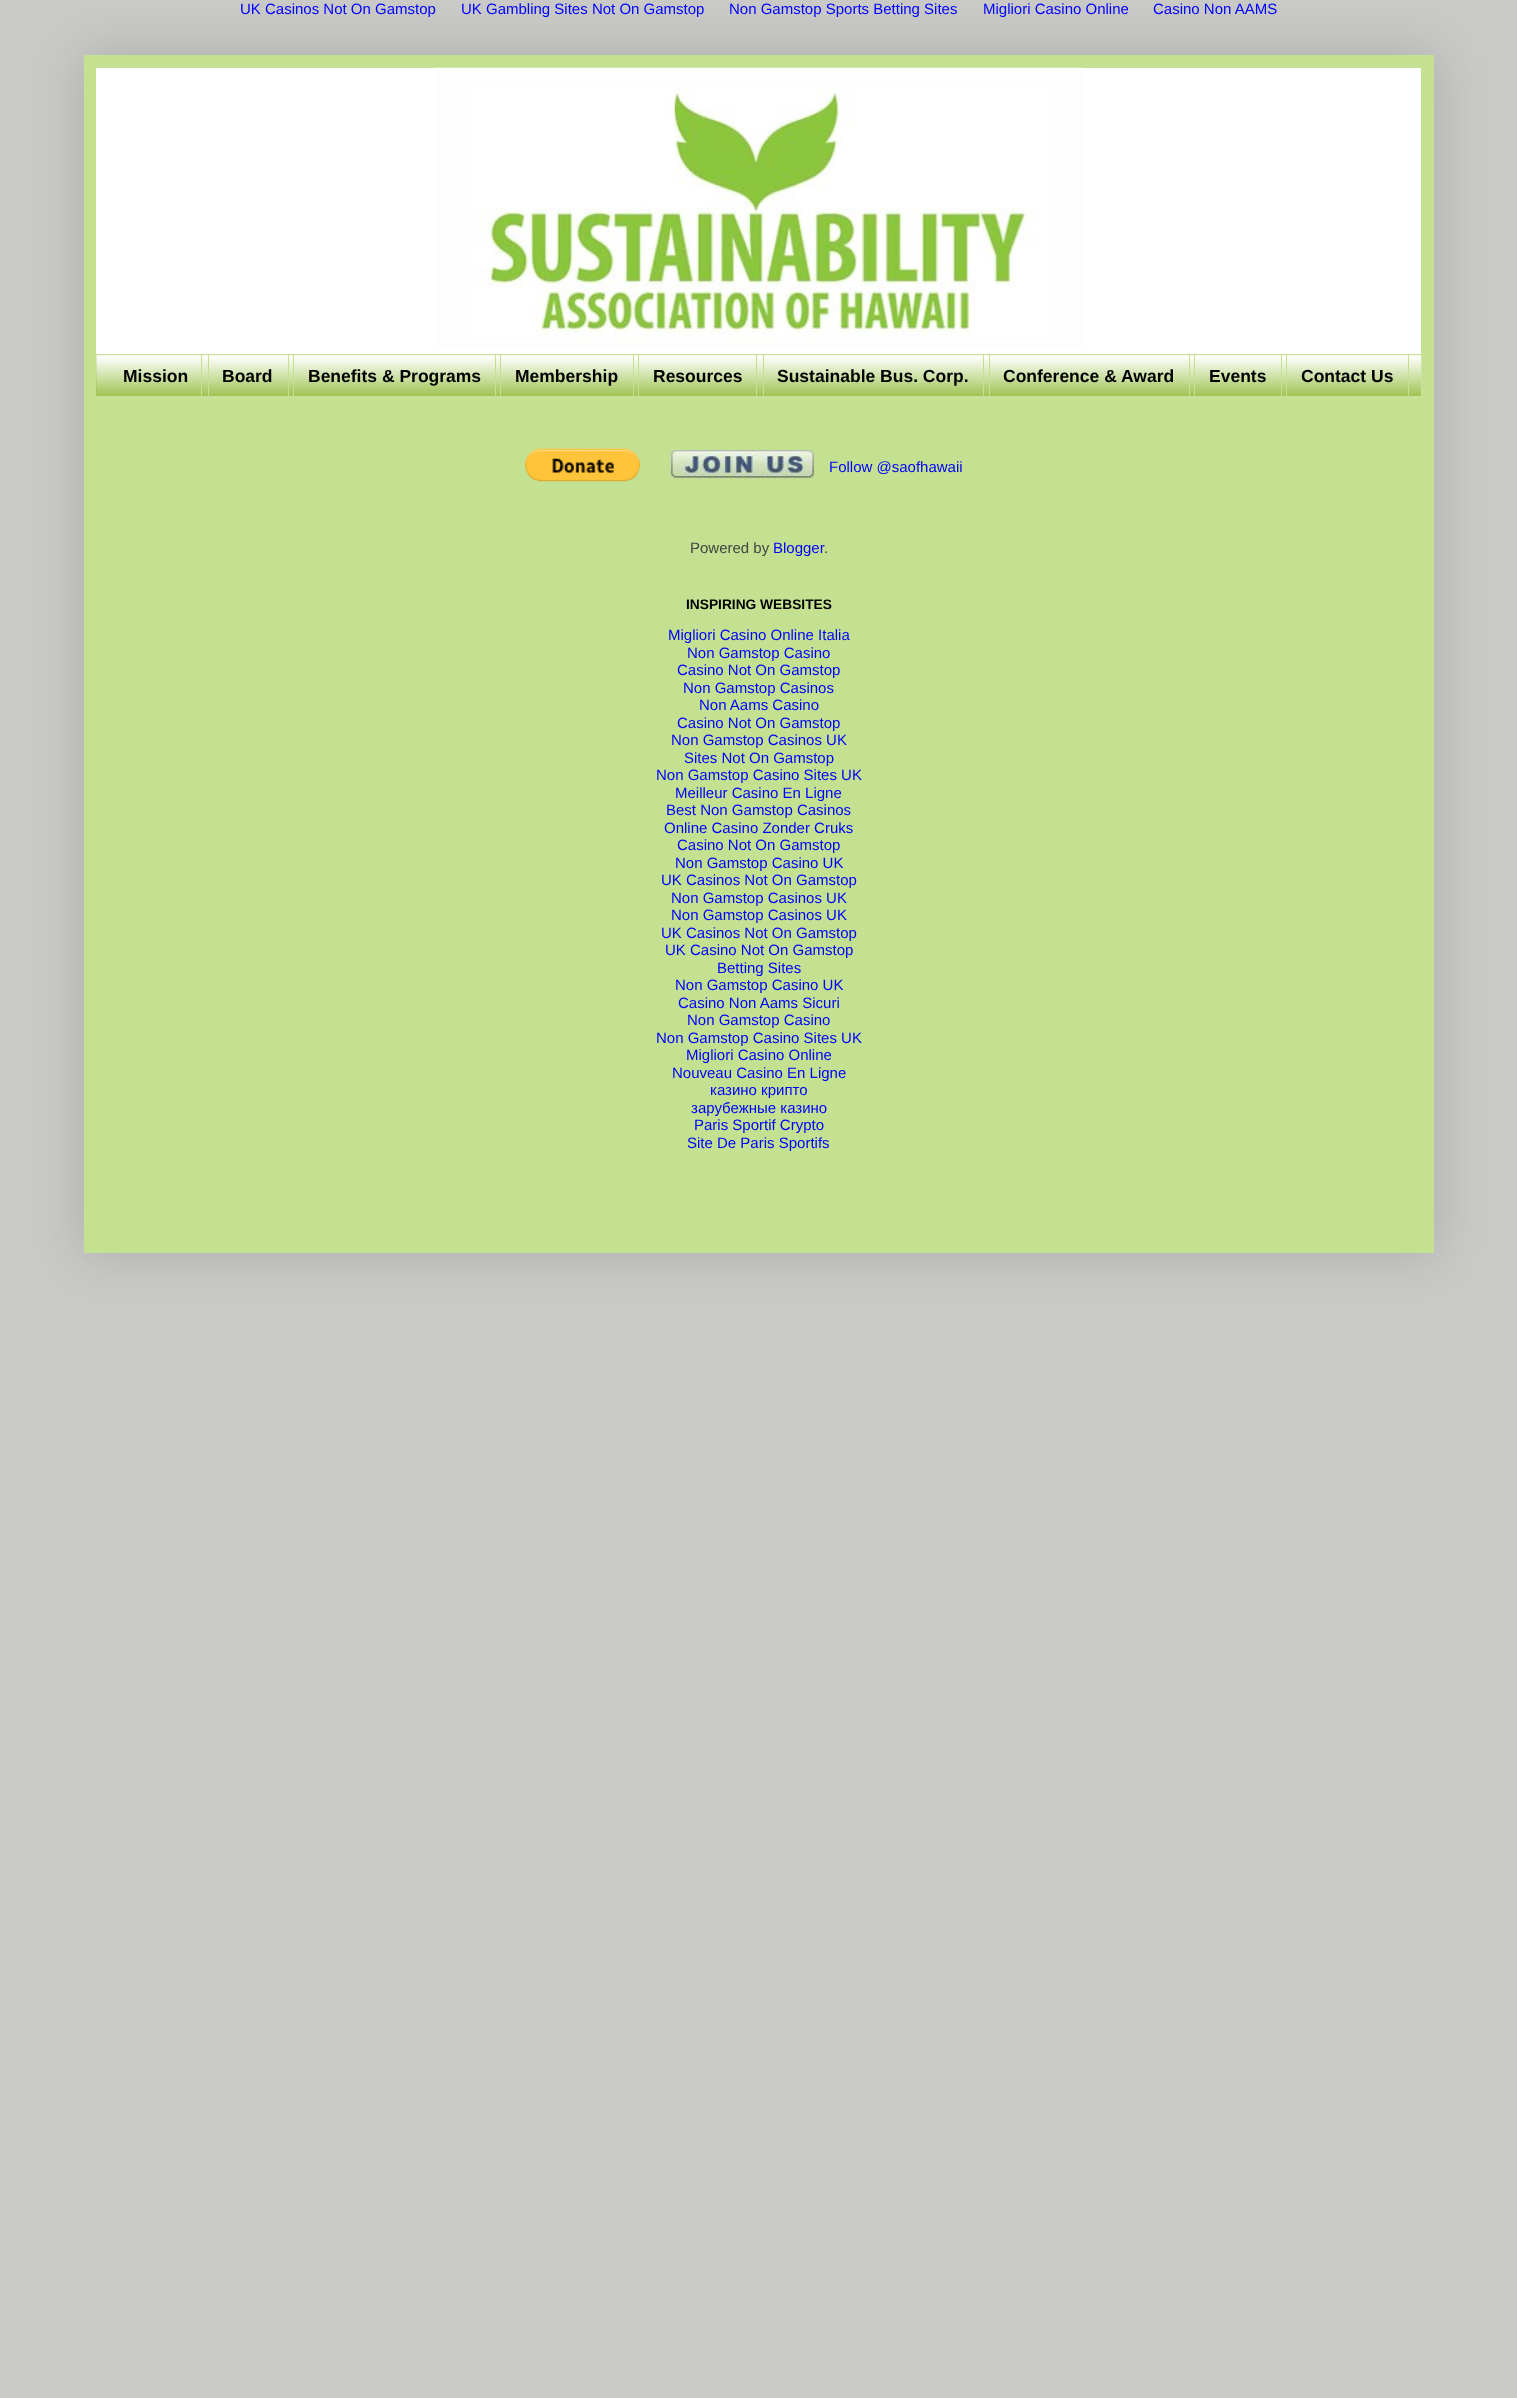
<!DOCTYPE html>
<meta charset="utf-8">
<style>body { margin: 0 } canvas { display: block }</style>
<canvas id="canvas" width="1517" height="2398"></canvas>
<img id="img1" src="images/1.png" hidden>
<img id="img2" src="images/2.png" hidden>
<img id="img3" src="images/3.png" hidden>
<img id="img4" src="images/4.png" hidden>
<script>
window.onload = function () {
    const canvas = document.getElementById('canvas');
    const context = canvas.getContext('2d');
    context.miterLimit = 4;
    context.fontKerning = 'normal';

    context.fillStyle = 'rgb(201, 201, 200)';
    context.fillRect(0, 0, 1517, 2398);
    context.fillStyle = 'rgba(0, 0, 0, 0.15)';
    context.filter = 'blur(25px)';
    context.beginPath();
    context.rect(84, 55, 1350, 1198);
    context.fill();
    context.filter = 'none';
    context.fillStyle = 'rgb(195, 225, 144)';
    context.fillRect(84, 55, 1350, 1198);
    context.fillStyle = 'rgb(255, 255, 255)';
    context.fillRect(96, 68, 1325, 286);
    context.drawImage(document.getElementById('img1'), 435, 67, 648, 281);
    context.fillStyle = 'rgb(141, 185, 50)';
    context.fillRect(96, 355, 1325, 41);
    context.drawImage(document.getElementById('img2'), 96, 354, 1326, 44);
    context.fillStyle = 'rgb(195, 225, 144)';
    context.fillRect(96, 354, 1325, 1);
    context.fillRect(96, 396, 1325, 1);
    context.fillRect(201, 355, 1, 41);
    context.fillRect(288, 355, 1, 41);
    context.fillRect(208, 355, 1, 41);
    context.fillRect(495, 355, 1, 41);
    context.fillRect(293, 355, 1, 41);
    context.fillRect(633, 355, 1, 41);
    context.fillRect(500, 355, 1, 41);
    context.fillRect(756, 355, 1, 41);
    context.fillRect(638, 355, 1, 41);
    context.fillRect(983, 355, 1, 41);
    context.fillRect(763, 355, 1, 41);
    context.fillRect(1189, 355, 1, 41);
    context.fillRect(989, 355, 1, 41);
    context.fillRect(1281, 355, 1, 41);
    context.fillRect(1194, 355, 1, 41);
    context.fillRect(1408, 355, 1, 41);
    context.fillRect(1286, 355, 1, 41);
    context.drawImage(document.getElementById('img3'), 525, 448, 115, 34);
    context.drawImage(document.getElementById('img4'), 670, 450, 144, 29);
    context.font = '15px Liberation Sans';
    context.fillStyle = 'rgb(0, 0, 255)';
    context.fillText('UK Casinos Not On Gamstop', 240, 14);
    context.fillText('UK Gambling Sites Not On Gamstop', 461, 14);
    context.fillText('Non Gamstop Sports Betting Sites', 729, 14);
    context.fillText('Migliori Casino Online', 983, 14);
    context.fillText('Casino Non AAMS', 1153, 14);
    context.font = 'bold 17.5px Liberation Sans';
    context.fillStyle = 'rgb(0, 0, 0)';
    context.fillText('Mission', 123, 382);
    context.fillText('Board', 222, 382);
    context.fillText('Benefits & Programs', 308, 382);
    context.fillText('Membership', 515, 382);
    context.fillText('Resources', 653, 382);
    context.fillText('Sustainable Bus. Corp.', 777, 382);
    context.fillText('Conference & Award', 1003, 382);
    context.fillText('Events', 1209, 382);
    context.fillText('Contact Us', 1301, 382);
    context.font = '15px Liberation Sans';
    context.fillStyle = 'rgb(0, 0, 255)';
    context.fillText('Follow @saofhawaii', 829, 472);
    context.fillStyle = 'rgb(68, 68, 68)';
    context.fillText('Powered by', 690, 553);
    context.fillStyle = 'rgb(0, 0, 255)';
    context.fillText('Blogger', 773, 553);
    context.fillStyle = 'rgb(68, 68, 68)';
    context.fillText('.', 824, 553);
    context.font = 'bold 13.75px Liberation Sans';
    context.fillStyle = 'rgb(0, 0, 0)';
    context.fillText('INSPIRING WEBSITES', 686, 609);
    context.font = '15px Liberation Sans';
    context.fillStyle = 'rgb(0, 0, 255)';
    context.fillText('Migliori Casino Online Italia', 668, 640);
    context.fillText('Non Gamstop Casino', 687, 658);
    context.fillText('Casino Not On Gamstop', 677, 675);
    context.fillText('Non Gamstop Casinos', 683, 693);
    context.fillText('Non Aams Casino', 699, 710);
    context.fillText('Casino Not On Gamstop', 677, 728);
    context.fillText('Non Gamstop Casinos UK', 671, 745);
    context.fillText('Sites Not On Gamstop', 684, 763);
    context.fillText('Non Gamstop Casino Sites UK', 656, 780);
    context.fillText('Meilleur Casino En Ligne', 675, 798);
    context.fillText('Best Non Gamstop Casinos', 666, 815);
    context.fillText('Online Casino Zonder Cruks', 664, 833);
    context.fillText('Casino Not On Gamstop', 677, 850);
    context.fillText('Non Gamstop Casino UK', 675, 868);
    context.fillText('UK Casinos Not On Gamstop', 661, 885);
    context.fillText('Non Gamstop Casinos UK', 671, 903);
    context.fillText('Non Gamstop Casinos UK', 671, 920);
    context.fillText('UK Casinos Not On Gamstop', 661, 938);
    context.fillText('UK Casino Not On Gamstop', 665, 955);
    context.fillText('Betting Sites', 717, 973);
    context.fillText('Non Gamstop Casino UK', 675, 990);
    context.fillText('Casino Non Aams Sicuri', 678, 1008);
    context.fillText('Non Gamstop Casino', 687, 1025);
    context.fillText('Non Gamstop Casino Sites UK', 656, 1043);
    context.fillText('Migliori Casino Online', 686, 1060);
    context.fillText('Nouveau Casino En Ligne', 672, 1078);
    context.fillText('казино крипто', 710, 1095);
    context.fillText('зарубежные казино', 691, 1113);
    context.fillText('Paris Sportif Crypto', 694, 1130);
    context.fillText('Site De Paris Sportifs', 687, 1148);
};
</script>
